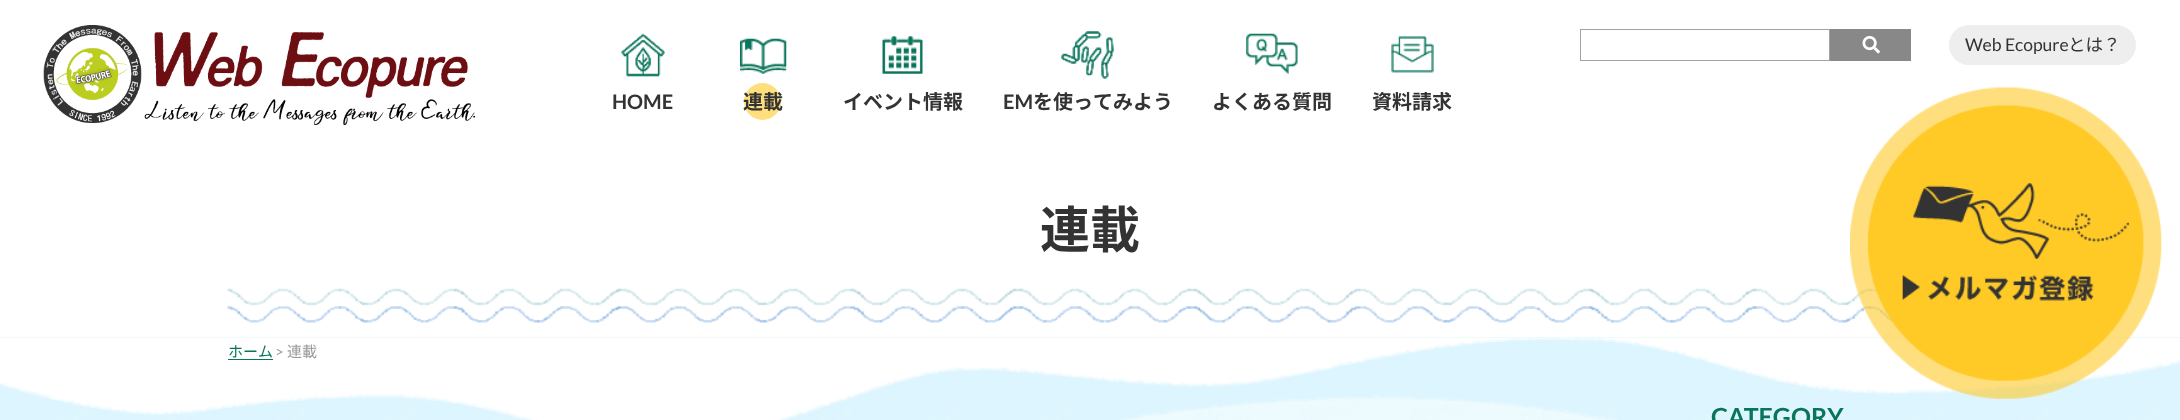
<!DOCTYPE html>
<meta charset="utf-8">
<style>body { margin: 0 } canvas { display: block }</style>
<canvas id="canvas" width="2180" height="420"></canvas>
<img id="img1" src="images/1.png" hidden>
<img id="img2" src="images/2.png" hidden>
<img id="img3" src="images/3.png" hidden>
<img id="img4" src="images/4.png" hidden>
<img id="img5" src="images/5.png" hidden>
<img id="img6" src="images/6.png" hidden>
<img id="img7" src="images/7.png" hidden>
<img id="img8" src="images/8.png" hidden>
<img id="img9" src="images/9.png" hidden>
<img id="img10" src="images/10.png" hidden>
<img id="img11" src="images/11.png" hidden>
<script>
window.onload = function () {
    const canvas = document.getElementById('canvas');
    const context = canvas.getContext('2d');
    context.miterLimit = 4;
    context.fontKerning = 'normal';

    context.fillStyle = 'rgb(255, 255, 255)';
    context.fillRect(0, 0, 2180, 420);
    context.drawImage(document.getElementById('img1'), 43, 25, 432, 100);
    context.strokeStyle = 'rgb(162, 162, 162)';
    context.strokeRect(1580.5, 29.5, 249, 31);
    context.fillStyle = 'rgb(136, 136, 136)';
    context.fillRect(1830, 29, 81, 32);
    context.drawImage(document.getElementById('img2'), 1862, 36, 18, 18);
    context.fillStyle = 'rgb(238, 238, 238)';
    context.beginPath();
    context.roundRect(1949, 25, 187, 40, 20);
    context.fill();
    context.drawImage(document.getElementById('img3'), 621, 33, 44, 44);
    context.drawImage(document.getElementById('img4'), 740, 38, 47, 36);
    context.fillStyle = 'rgb(255, 223, 125)';
    context.beginPath();
    context.arc(762.5, 101.5, 18.5, 0, 2 * Math.PI);
    context.fill();
    context.drawImage(document.getElementById('img5'), 882, 36, 41, 38);
    context.drawImage(document.getElementById('img6'), 1061, 31, 53, 48);
    context.drawImage(document.getElementById('img7'), 1246, 33, 52, 41);
    context.drawImage(document.getElementById('img8'), 1391, 36, 43, 37);
    context.drawImage(document.getElementById('img9'), 0, 150, 2180, 270);
    context.drawImage(document.getElementById('img10'), 227, 288, 1668, 35);
    context.fillStyle = 'rgb(10, 117, 91)';
    context.fillRect(228, 359, 45, 1);
    context.drawImage(document.getElementById('img11'), 1850, 87, 312, 312);
    context.font = '17.5px Lato';
    context.fillStyle = 'rgb(51, 51, 51)';
    context.fillText('Web Ecopure', 1965, 51);
    context.font = '17.5px Noto Sans JP';
    context.fillText('とは？', 2068, 51);
    context.font = 'bold 20px Lato';
    context.fillText('HOME', 612, 109);
    context.font = 'bold 20px Noto Sans JP';
    context.fillText('連載', 743, 109);
    context.fillText('イベント情報', 843, 109);
    context.font = 'bold 20px Lato';
    context.fillText('EM', 1003, 109);
    context.font = 'bold 20px Noto Sans JP';
    context.fillText('を使ってみよう', 1033, 109);
    context.fillText('よくある質問', 1212, 109);
    context.fillText('資料請求', 1372, 109);
    context.font = 'bold 50px Noto Sans JP';
    context.fillText('連載', 1040, 248);
    context.font = '15px Noto Sans JP';
    context.fillStyle = 'rgb(10, 117, 91)';
    context.fillText('ホーム', 228, 357);
    context.font = '15px Lato';
    context.fillStyle = 'rgb(153, 153, 153)';
    context.fillText('>', 275, 357);
    context.font = '15px Noto Sans JP';
    context.fillText('連載', 287, 357);
    context.font = 'bold 25px Lato';
    context.fillStyle = 'rgb(10, 117, 91)';
    context.fillText('CATEGORY', 1711, 426);
};
</script>
